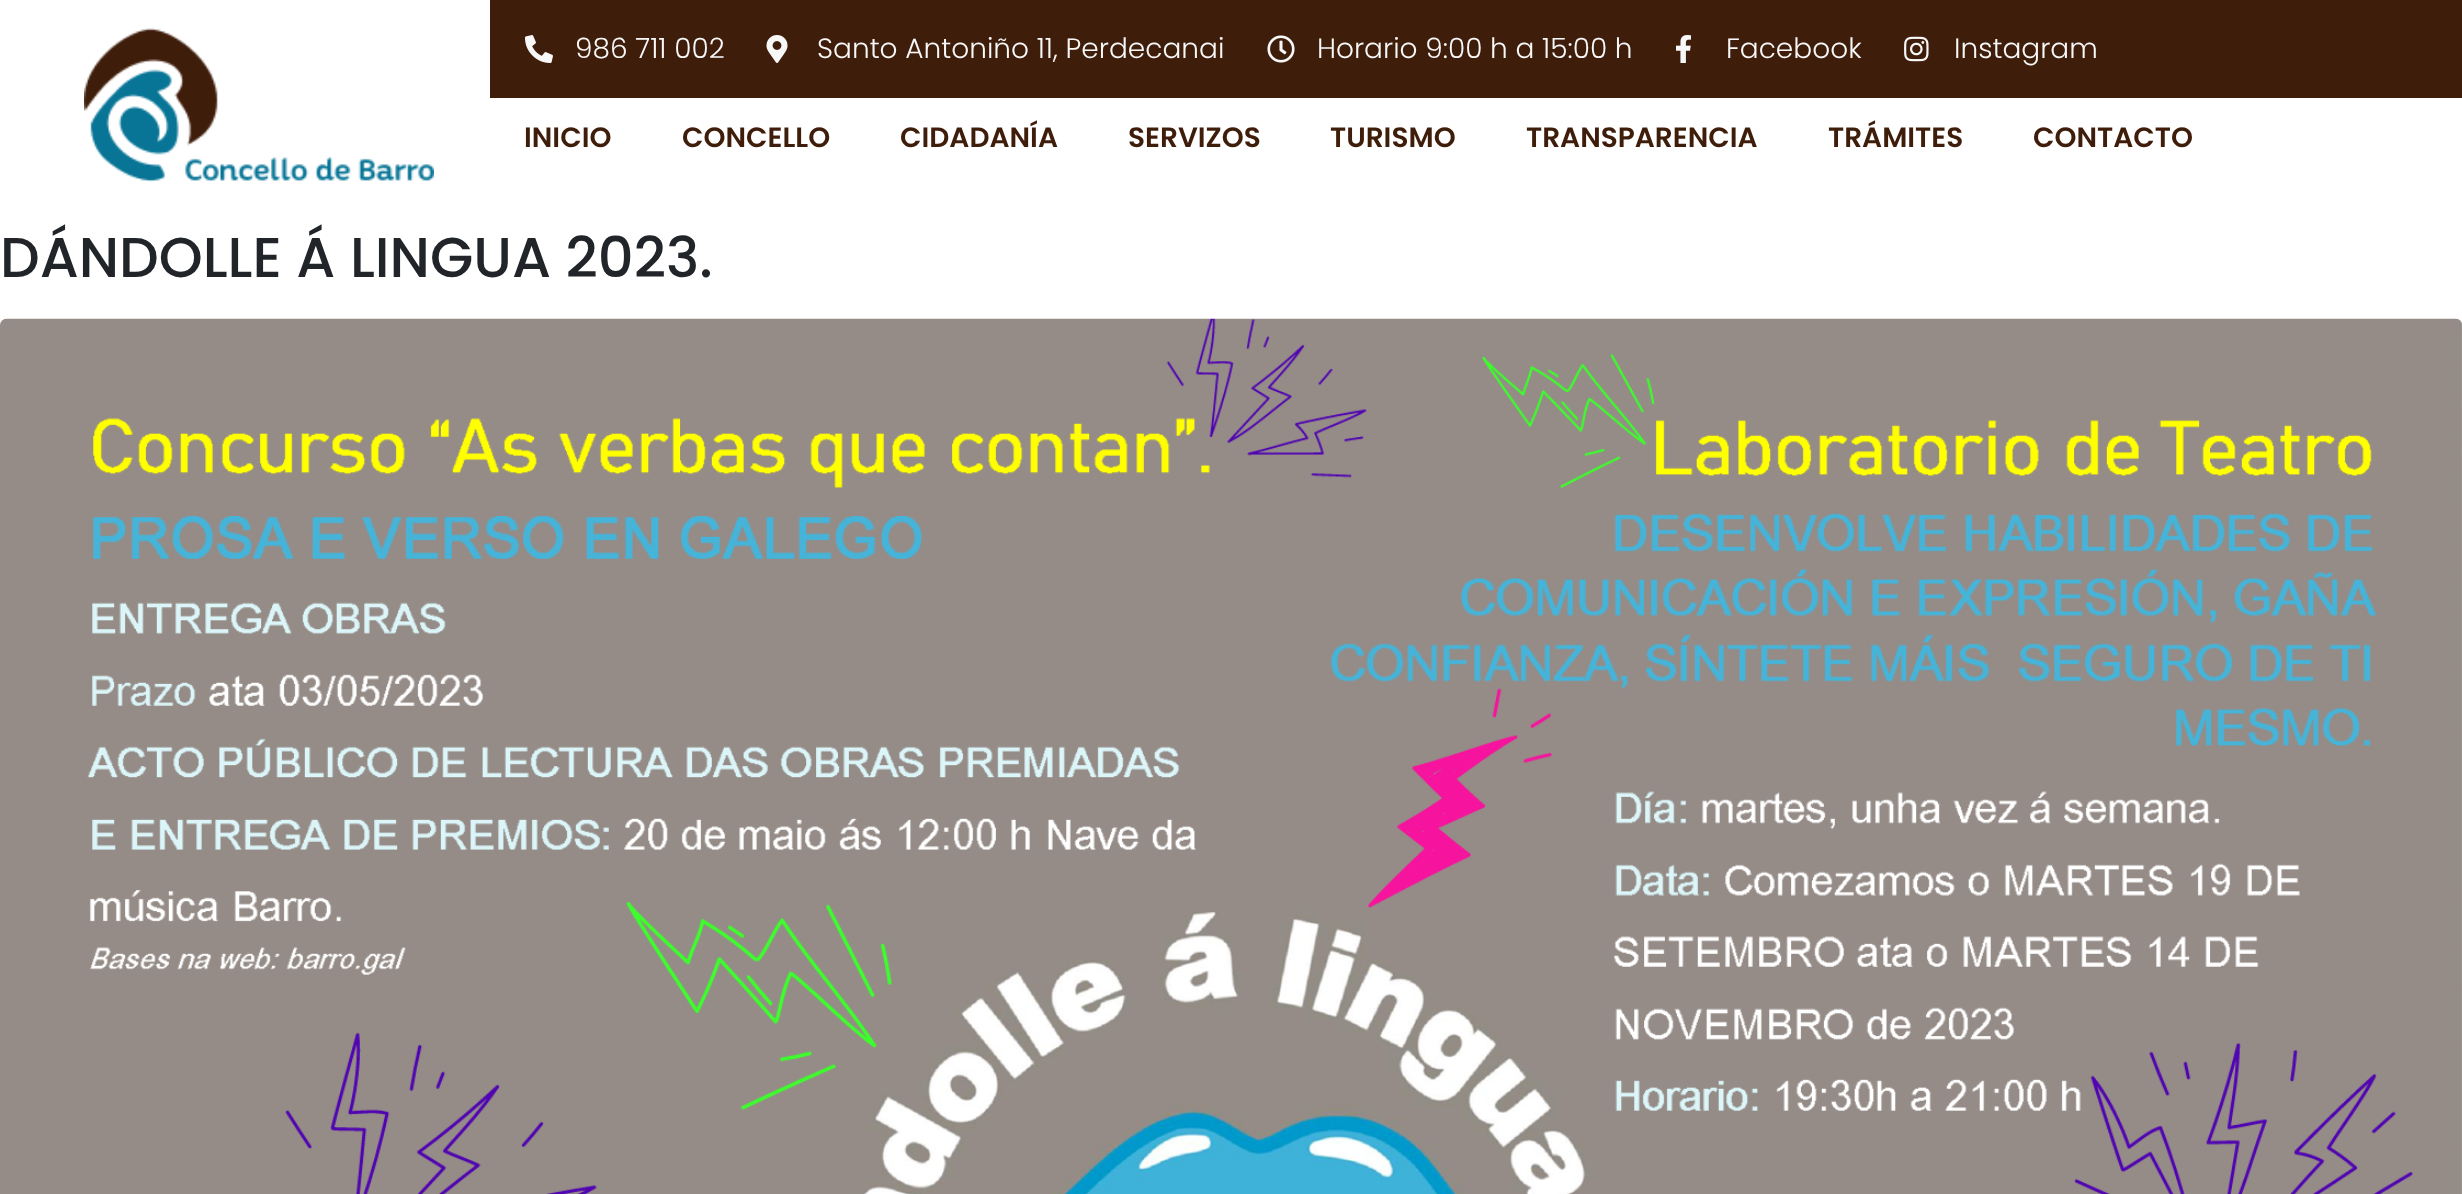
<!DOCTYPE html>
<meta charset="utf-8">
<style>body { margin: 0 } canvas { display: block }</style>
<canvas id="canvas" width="2462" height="1194"></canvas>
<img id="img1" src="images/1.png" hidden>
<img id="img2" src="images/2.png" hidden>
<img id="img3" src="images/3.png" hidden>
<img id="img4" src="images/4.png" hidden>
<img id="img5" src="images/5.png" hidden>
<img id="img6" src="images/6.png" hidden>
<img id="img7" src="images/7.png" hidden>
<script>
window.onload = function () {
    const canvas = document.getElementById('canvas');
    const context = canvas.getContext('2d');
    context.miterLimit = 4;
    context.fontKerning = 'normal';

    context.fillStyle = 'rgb(255, 255, 255)';
    context.fillRect(0, 0, 2462, 1194);
    context.drawImage(document.getElementById('img1'), 84, 28, 350, 154);
    context.fillStyle = 'rgb(63, 29, 11)';
    context.fillRect(490, 0, 1972, 98);
    context.drawImage(document.getElementById('img2'), 525, 35, 28, 28);
    context.drawImage(document.getElementById('img3'), 766, 35, 22, 28);
    context.drawImage(document.getElementById('img4'), 1267, 35, 28, 28);
    context.drawImage(document.getElementById('img5'), 1676, 35, 15, 28);
    context.drawImage(document.getElementById('img6'), 1904, 36, 25, 26);
    context.drawImage(document.getElementById('img7'), 0, 318, 2462, 876);
    context.font = '300 28px Poppins';
    context.fillStyle = 'rgb(248, 248, 248)';
    context.fillText('986 711 002', 575, 58);
    context.fillText('Santo Antoniño 11, Perdecanai', 817, 58);
    context.fillText('Horario 9:00 h a 15:00 h', 1317, 58);
    context.fillText('Facebook', 1726, 58);
    context.fillText('Instagram', 1954, 58);
    context.font = '600 28px Poppins';
    context.fillStyle = 'rgb(63, 29, 11)';
    context.fillText('INICIO', 524, 147);
    context.fillText('CONCELLO', 682, 147);
    context.fillText('CIDADANÍA', 900, 147);
    context.fillText('SERVIZOS', 1128, 147);
    context.fillText('TURISMO', 1330, 147);
    context.fillText('TRANSPARENCIA', 1526, 147);
    context.fillText('TRÁMITES', 1828, 147);
    context.fillText('CONTACTO', 2033, 147);
    context.font = '500 56px Poppins';
    context.fillStyle = 'rgb(33, 37, 41)';
    context.fillText('DÁNDOLLE Á LINGUA 2023.', 0, 277);
};
</script>
